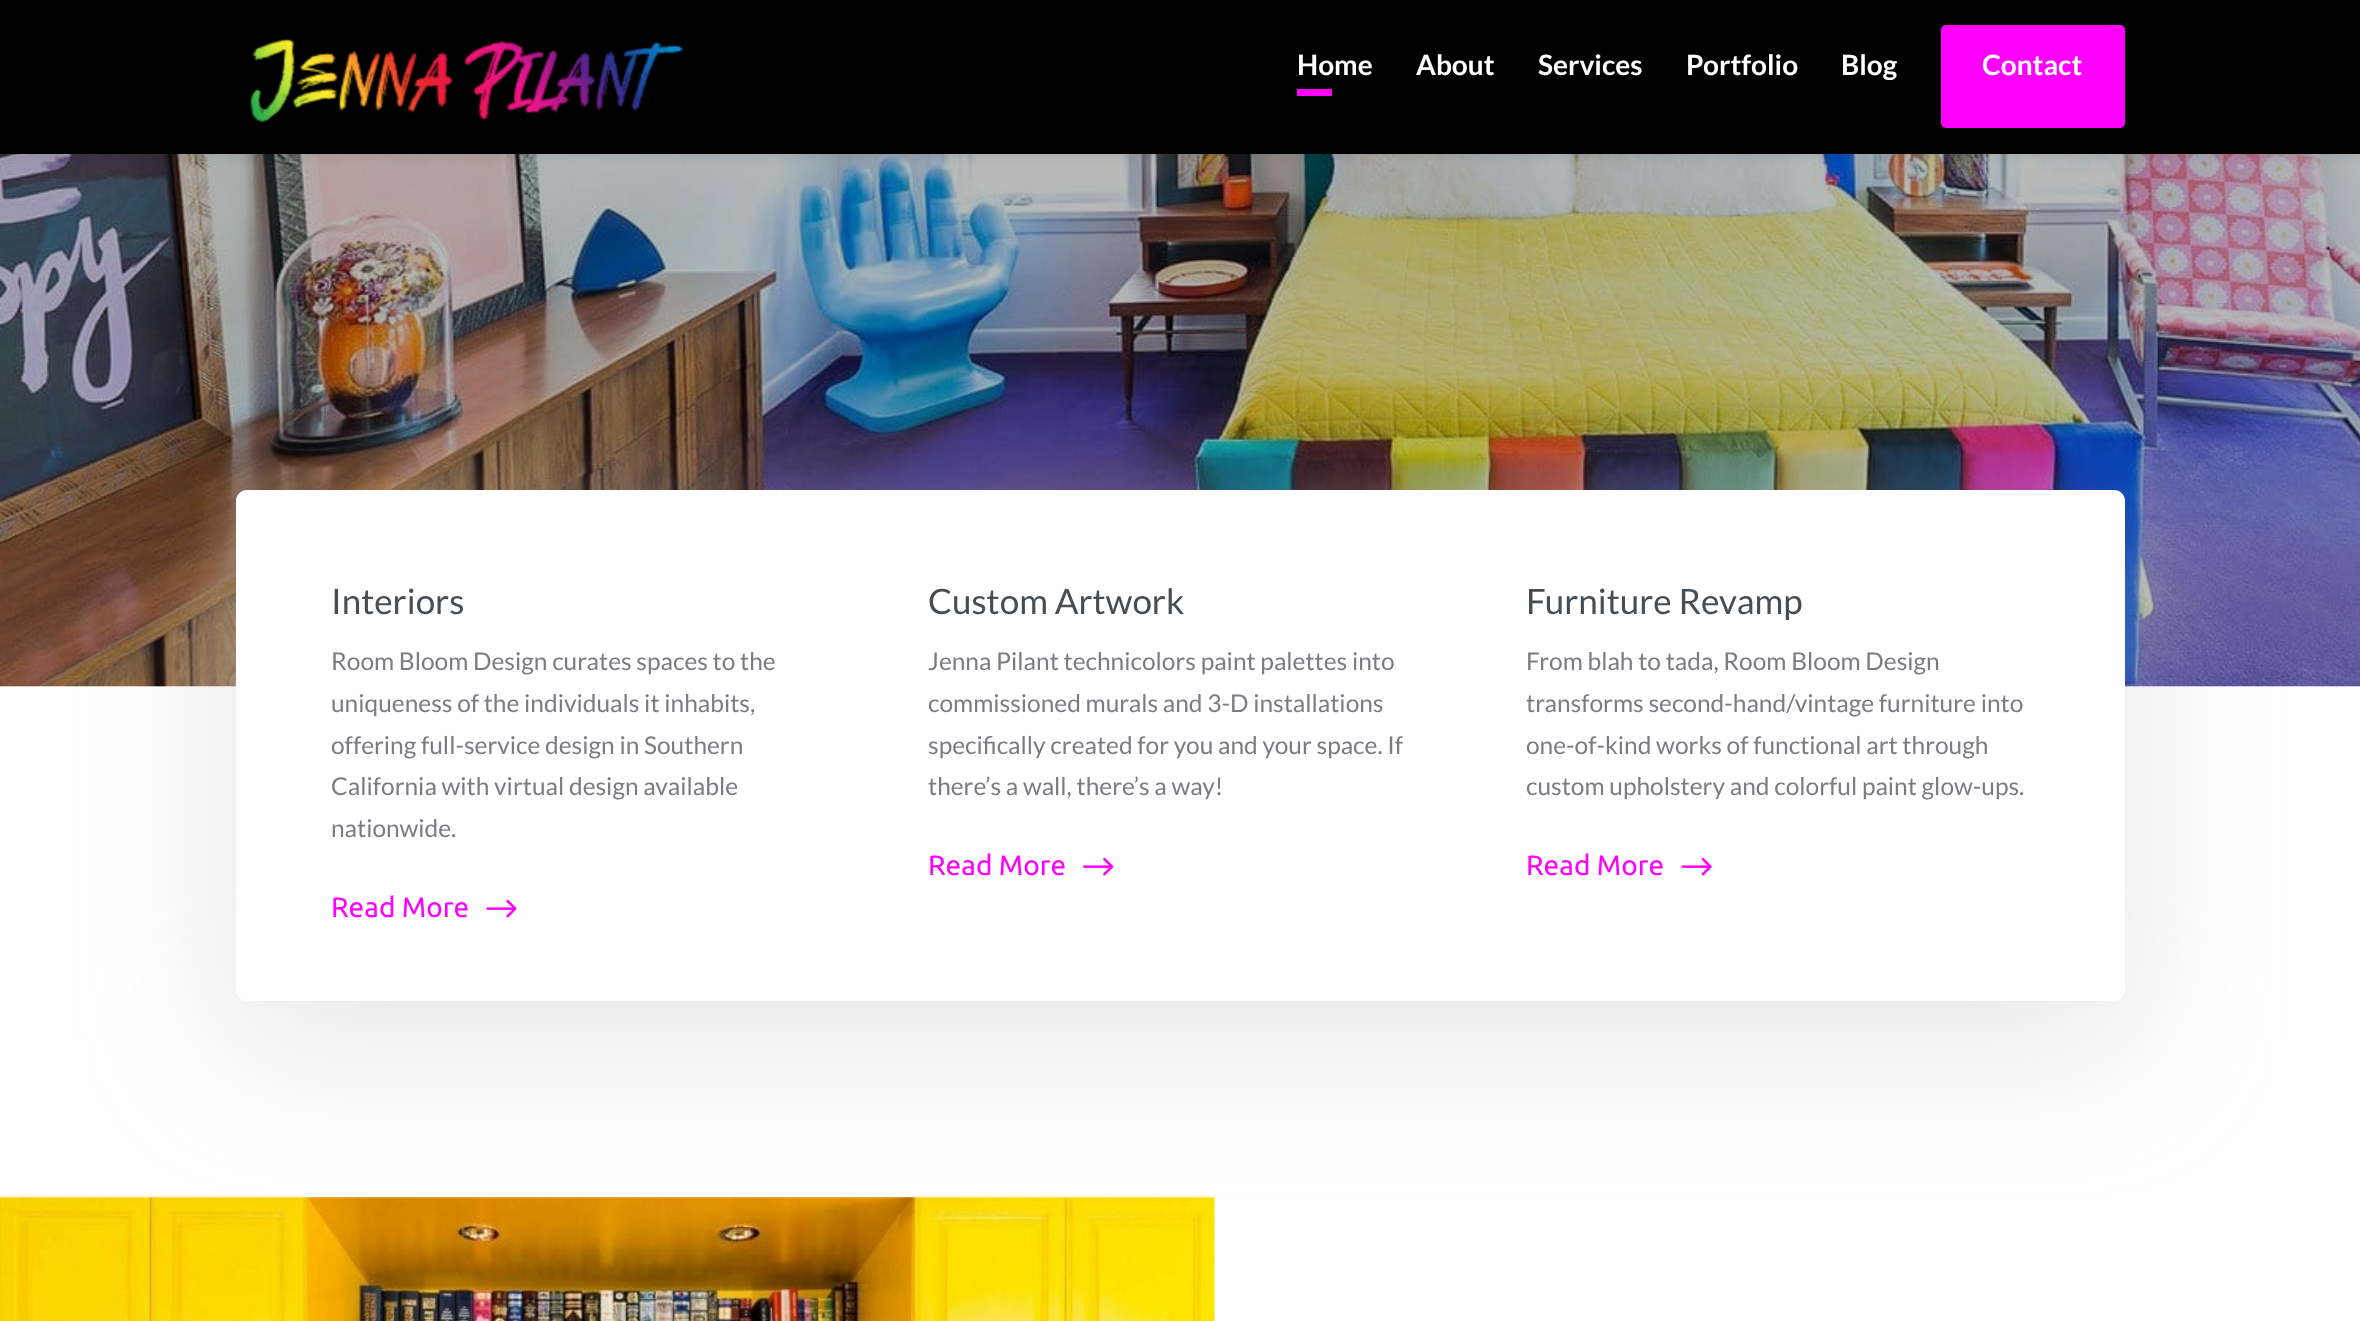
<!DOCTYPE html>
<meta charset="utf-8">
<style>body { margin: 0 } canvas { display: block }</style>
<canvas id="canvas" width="2360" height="1321"></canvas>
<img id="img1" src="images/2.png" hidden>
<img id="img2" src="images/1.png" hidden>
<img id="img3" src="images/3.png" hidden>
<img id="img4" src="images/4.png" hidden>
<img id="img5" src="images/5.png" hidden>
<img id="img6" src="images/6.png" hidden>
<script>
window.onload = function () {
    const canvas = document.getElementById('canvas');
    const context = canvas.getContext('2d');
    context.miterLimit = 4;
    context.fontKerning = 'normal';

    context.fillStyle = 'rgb(255, 255, 255)';
    context.fillRect(0, 0, 2360, 1321);
    context.drawImage(document.getElementById('img1'), 0, 154, 2360, 533);
    context.fillStyle = 'rgba(0, 0, 0, 0.1)';
    context.filter = 'blur(6px)';
    context.beginPath();
    context.rect(0, 0, 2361, 154);
    context.fill();
    context.filter = 'none';
    context.fillStyle = 'rgb(0, 0, 0)';
    context.fillRect(0, 0, 2360, 154);
    context.drawImage(document.getElementById('img2'), 250, 38, 433, 85);
    context.fillStyle = 'rgb(255, 0, 255)';
    context.fillRect(1297, 89, 35, 7);
    context.beginPath();
    context.roundRect(1941, 25, 184, 103, 5);
    context.fill();
    context.fillStyle = 'rgba(204, 204, 204, 0.5)';
    context.filter = 'blur(70px)';
    context.beginPath();
    context.roundRect(236, 529, 1889, 511, 11);
    context.fill();
    context.filter = 'none';
    context.fillStyle = 'rgb(255, 255, 255)';
    context.beginPath();
    context.roundRect(236, 490, 1889, 511, 11);
    context.fill();
    context.drawImage(document.getElementById('img3'), 486, 899, 31, 19);
    context.drawImage(document.getElementById('img4'), 1083, 857, 31, 19);
    context.drawImage(document.getElementById('img5'), 1681, 857, 31, 19);
    context.drawImage(document.getElementById('img6'), 0, 1197, 1215, 124);
    context.font = 'bold 28px Lato';
    context.fillText('Home', 1297, 75);
    context.fillText('About', 1416, 75);
    context.fillText('Services', 1538, 75);
    context.fillText('Portfolio', 1686, 75);
    context.fillText('Blog', 1841, 75);
    context.fillText('Contact', 1982, 75);
    context.font = '35px Lato';
    context.fillStyle = 'rgb(72, 77, 82)';
    context.fillText('Interiors', 331, 614);
    context.font = '24.5px Lato';
    context.fillStyle = 'rgb(122, 124, 129)';
    context.fillText('Room Bloom Design curates spaces to the', 331, 670);
    context.fillText('uniqueness of the individuals it inhabits,', 331, 712);
    context.fillText('offering full-service design in Southern', 331, 754);
    context.fillText('California with virtual design available', 331, 795);
    context.fillText('nationwide.', 331, 837);
    context.font = '28px Ubuntu';
    context.fillStyle = 'rgb(255, 0, 255)';
    context.fillText('Read More', 331, 917);
    context.font = '35px Lato';
    context.fillStyle = 'rgb(72, 77, 82)';
    context.fillText('Custom Artwork', 928, 614);
    context.font = '24.5px Lato';
    context.fillStyle = 'rgb(122, 124, 129)';
    context.fillText('Jenna Pilant technicolors paint palettes into', 928, 670);
    context.fillText('commissioned murals and 3-D installations', 928, 712);
    context.fillText('specifically created for you and your space. If', 928, 754);
    context.fillText('there’s a wall, there’s a way!', 928, 795);
    context.font = '28px Ubuntu';
    context.fillStyle = 'rgb(255, 0, 255)';
    context.fillText('Read More', 928, 875);
    context.font = '35px Lato';
    context.fillStyle = 'rgb(72, 77, 82)';
    context.fillText('Furniture Revamp', 1526, 614);
    context.font = '24.5px Lato';
    context.fillStyle = 'rgb(122, 124, 129)';
    context.fillText('From blah to tada, Room Bloom Design', 1526, 670);
    context.fillText('transforms second-hand/vintage furniture into', 1526, 712);
    context.fillText('one-of-kind works of functional art through', 1526, 754);
    context.fillText('custom upholstery and colorful paint glow-ups.', 1526, 795);
    context.font = '28px Ubuntu';
    context.fillStyle = 'rgb(255, 0, 255)';
    context.fillText('Read More', 1526, 875);
};
</script>
